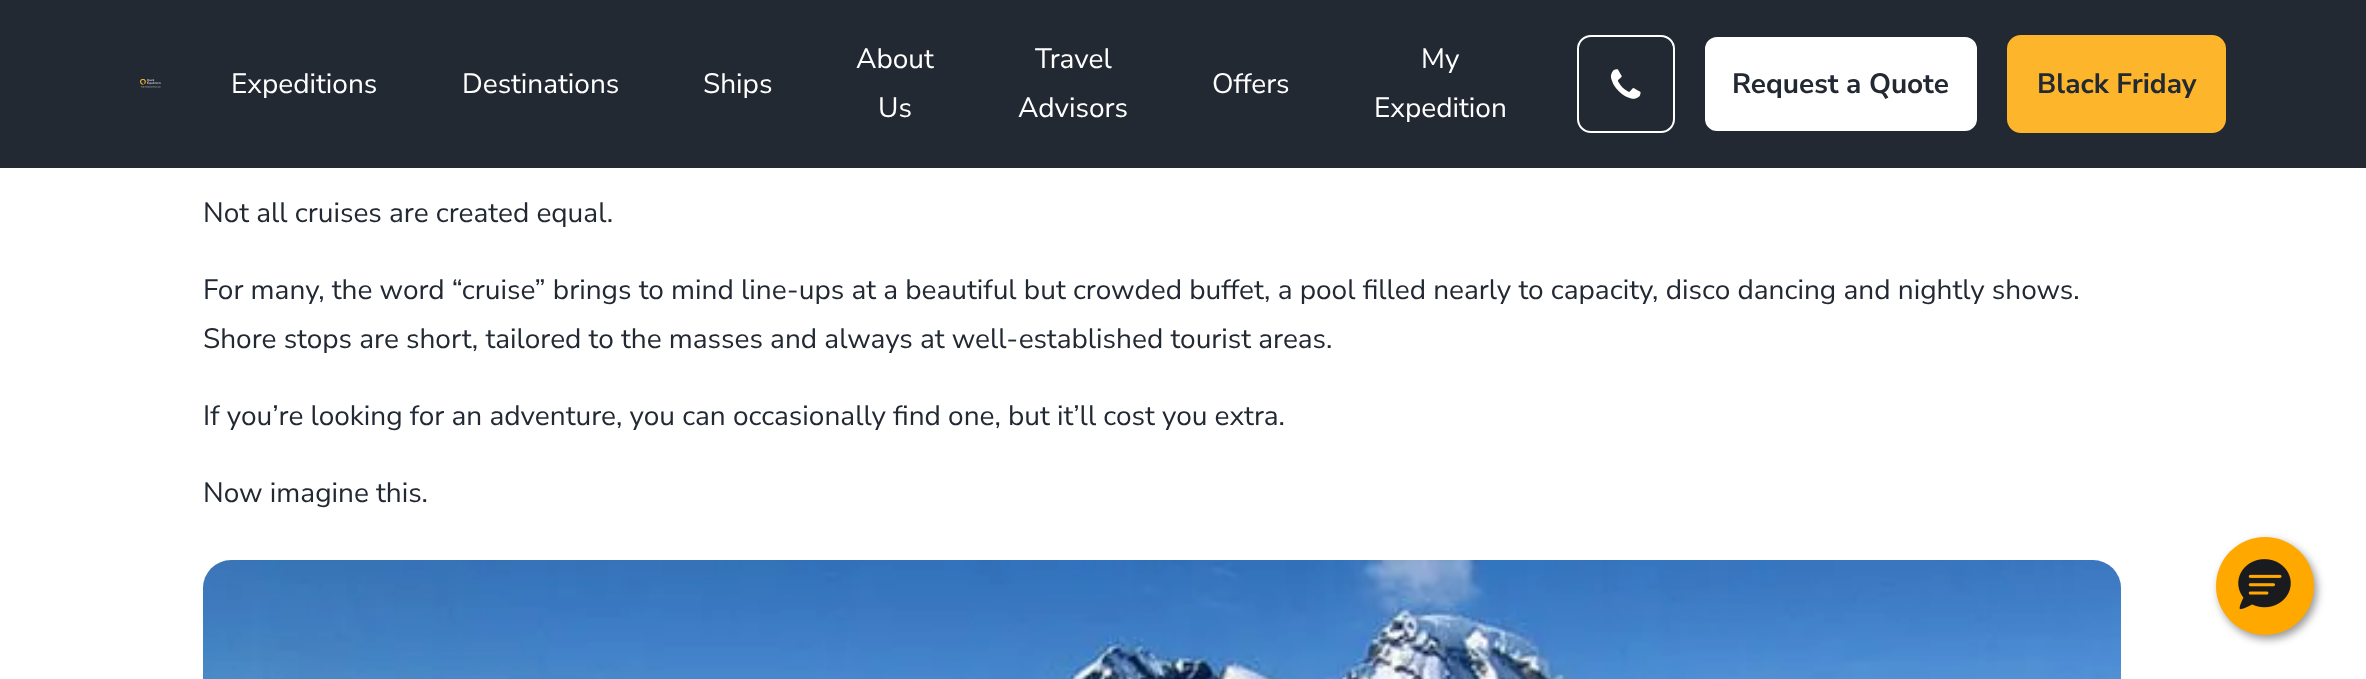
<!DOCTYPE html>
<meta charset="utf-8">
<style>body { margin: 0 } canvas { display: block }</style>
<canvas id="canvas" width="2366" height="679"></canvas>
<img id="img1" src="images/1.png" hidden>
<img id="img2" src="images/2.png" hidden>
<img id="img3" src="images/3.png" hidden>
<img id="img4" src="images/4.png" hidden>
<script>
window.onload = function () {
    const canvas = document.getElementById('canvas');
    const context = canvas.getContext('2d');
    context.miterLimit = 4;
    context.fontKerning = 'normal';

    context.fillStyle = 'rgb(255, 255, 255)';
    context.fillRect(0, 0, 2366, 679);
    context.fillStyle = 'rgb(35, 41, 51)';
    context.fillRect(0, 0, 2366, 168);
    context.drawImage(document.getElementById('img1'), 140, 79, 21, 9);
    context.beginPath();
    context.roundRect(1578, 36, 96, 96, 13);
    context.strokeStyle = 'rgb(255, 255, 255)';
    context.lineWidth = 2;
    context.stroke();
    context.drawImage(document.getElementById('img2'), 1610, 69, 31, 30);
    context.fillStyle = 'rgb(255, 255, 255)';
    context.beginPath();
    context.roundRect(1704, 36, 274, 96, 13);
    context.fill();
    context.strokeStyle = 'rgb(35, 41, 51)';
    context.stroke();
    context.fillStyle = 'rgb(253, 181, 43)';
    context.beginPath();
    context.roundRect(2008, 36, 217, 96, 13);
    context.fill();
    context.strokeStyle = 'rgb(253, 181, 43)';
    context.stroke();
    context.drawImage(document.getElementById('img3'), 203, 560, 1918, 119);
    context.fillStyle = 'rgba(45, 45, 45, 0.5)';
    context.filter = 'blur(4.5px)';
    context.beginPath();
    context.roundRect(2219, 541, 98, 98, 49);
    context.fill();
    context.filter = 'none';
    context.fillStyle = 'rgb(255, 168, 0)';
    context.beginPath();
    context.arc(2265, 586, 49, 0, 2 * Math.PI);
    context.fill();
    context.drawImage(document.getElementById('img4'), 2238, 559, 53, 51);
    context.font = '28px Nunito Sans';
    context.fillStyle = 'rgb(255, 255, 255)';
    context.fillText('Expeditions', 231, 93);
    context.fillText('Destinations', 462, 93);
    context.fillText('Ships', 703, 93);
    context.fillText('About', 856, 68);
    context.fillText('Us', 878, 117);
    context.fillText('Travel', 1035, 68);
    context.fillText('Advisors', 1018, 117);
    context.fillText('Offers', 1212, 93);
    context.fillText('My', 1421, 68);
    context.fillText('Expedition', 1374, 117);
    context.font = 'bold 28px Nunito Sans';
    context.fillStyle = 'rgb(35, 41, 51)';
    context.fillText('Request a Quote', 1732, 93);
    context.fillText('Black Friday', 2037, 93);
    context.font = '28px Nunito Sans';
    context.fillText('Not all cruises are created equal.', 203, 222);
    context.fillText('For many, the word “cruise” brings to mind line-ups at a beautiful but crowded buffet, a pool filled nearly to capacity, disco dancing and nightly shows.', 203, 299);
    context.fillText('Shore stops are short, tailored to the masses and always at well-established tourist areas.', 203, 348);
    context.fillText('If you’re looking for an adventure, you can occasionally find one, but it’ll cost you extra.', 203, 425);
    context.fillText('Now imagine this.', 203, 502);
};
</script>
